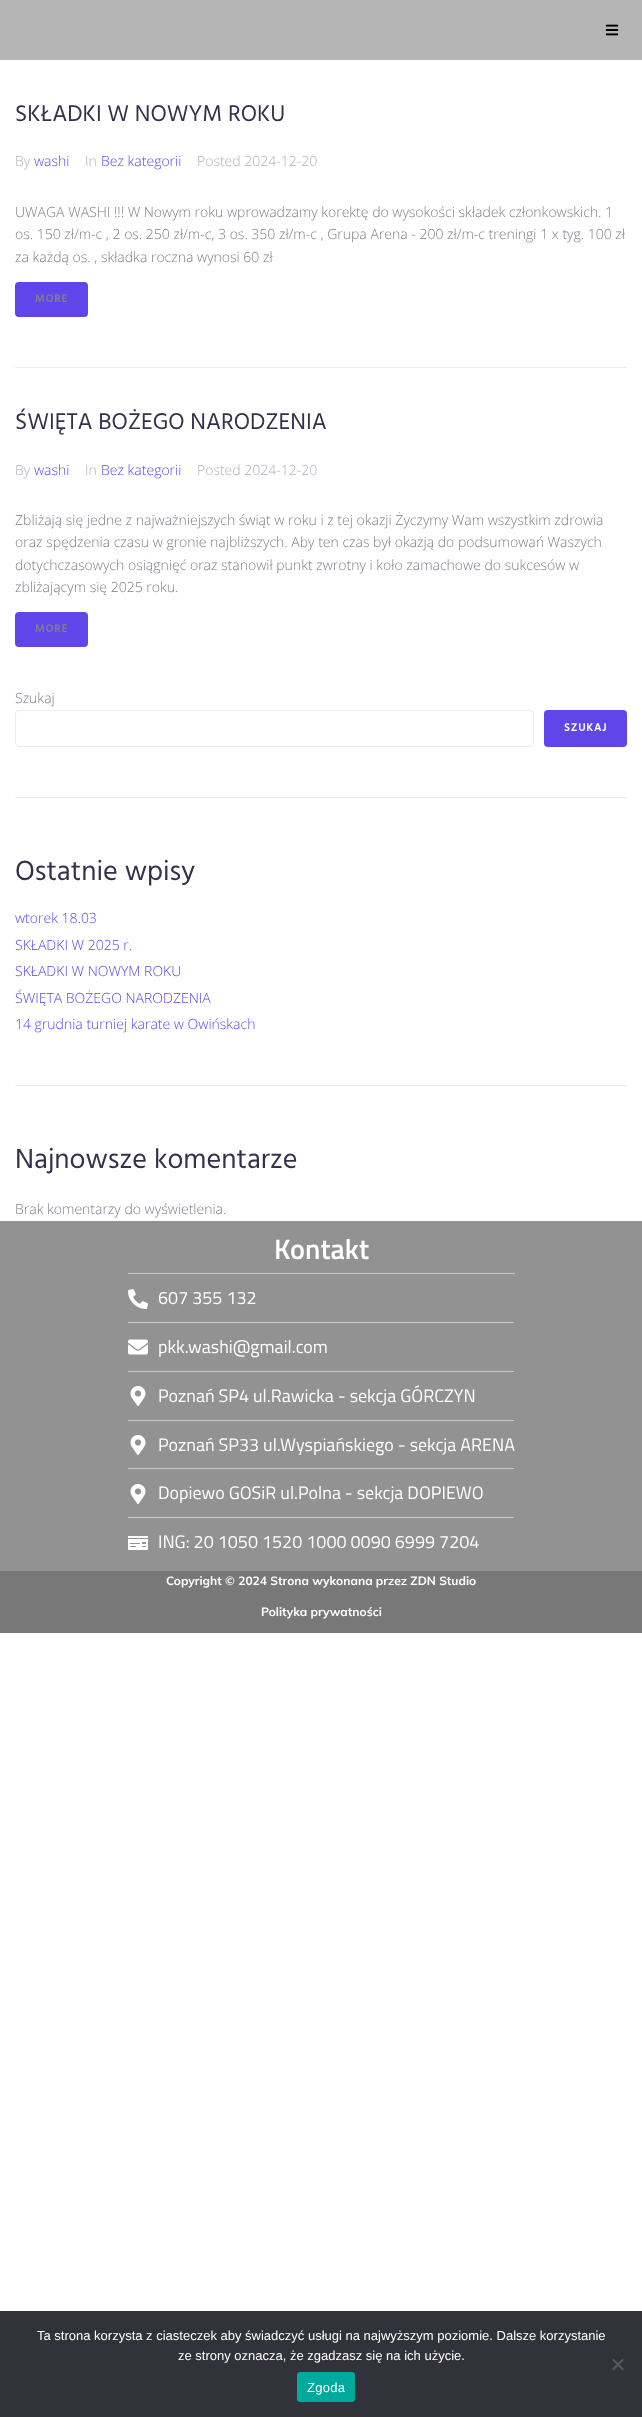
<!DOCTYPE html>
<meta charset="utf-8">
<style>body { margin: 0 } canvas { display: block }</style>
<canvas id="canvas" width="642" height="2417"></canvas>
<img id="img1" src="images/1.png" hidden>
<img id="img2" src="images/2.png" hidden>
<img id="img3" src="images/3.png" hidden>
<img id="img4" src="images/4.png" hidden>
<img id="img5" src="images/5.png" hidden>
<script>
window.onload = function () {
    const canvas = document.getElementById('canvas');
    const context = canvas.getContext('2d');
    context.miterLimit = 4;
    context.fontKerning = 'normal';

    context.fillStyle = 'rgb(255, 255, 255)';
    context.fillRect(0, 0, 642, 2417);
    context.fillStyle = 'rgb(181, 181, 181)';
    context.fillRect(0, 0, 642, 60);
    context.drawImage(document.getElementById('img1'), 605, 24, 14, 12);
    context.fillStyle = 'rgb(95, 69, 234)';
    context.beginPath();
    context.roundRect(15, 282, 73, 35, 4);
    context.fill();
    context.fillStyle = 'rgb(235, 236, 237)';
    context.fillRect(15, 367, 612, 1);
    context.fillStyle = 'rgb(95, 69, 234)';
    context.beginPath();
    context.roundRect(15, 612, 73, 35, 4);
    context.fill();
    context.beginPath();
    context.roundRect(15.5, 710.5, 518, 36, 3.5);
    context.strokeStyle = 'rgb(235, 236, 237)';
    context.stroke();
    context.beginPath();
    context.roundRect(544, 710, 83, 37, 4);
    context.fill();
    context.fillStyle = 'rgb(235, 236, 237)';
    context.fillRect(15, 797, 612, 1);
    context.fillRect(15, 1085, 612, 1);
    context.fillStyle = 'rgb(146, 146, 146)';
    context.fillRect(0, 1221, 642, 350);
    context.fillStyle = 'rgb(201, 201, 201)';
    context.fillRect(128, 1273, 387, 1);
    context.drawImage(document.getElementById('img2'), 128, 1289, 20, 20);
    context.fillRect(128, 1322, 386, 1);
    context.drawImage(document.getElementById('img3'), 128, 1339, 20, 16);
    context.fillRect(128, 1371, 386, 1);
    context.drawImage(document.getElementById('img4'), 130, 1386, 16, 20);
    context.fillRect(128, 1420, 386, 1);
    context.drawImage(document.getElementById('img4'), 130, 1435, 16, 20);
    context.fillRect(128, 1468, 386, 1);
    context.drawImage(document.getElementById('img4'), 130, 1484, 16, 20);
    context.fillRect(128, 1517, 386, 1);
    context.drawImage(document.getElementById('img5'), 128, 1536, 20, 14);
    context.fillStyle = 'rgb(120, 120, 120)';
    context.fillRect(0, 1571, 642, 62);
    context.fillStyle = 'rgb(50, 50, 58)';
    context.fillRect(0, 2311, 642, 106);
    context.fillStyle = 'rgb(89, 89, 93)';
    context.beginPath();
    context.moveTo(622.5, 2358.5);
    context.lineTo(624, 2360);
    context.lineTo(613.5, 2370.5);
    context.lineTo(612, 2369);
    context.closePath();
    context.fill();
    context.beginPath();
    context.moveTo(612, 2360);
    context.lineTo(613.5, 2358.5);
    context.lineTo(624, 2369);
    context.lineTo(622.5, 2370.5);
    context.closePath();
    context.fill();
    context.fillStyle = 'rgb(0, 169, 157)';
    context.beginPath();
    context.roundRect(297, 2372, 58, 30, 3);
    context.fill();
    context.font = '23.25px Hind';
    context.fillStyle = 'rgb(52, 49, 75)';
    context.fillText('SKŁADKI W NOWYM ROKU', 15, 121);
    context.font = '300 14px Open Sans';
    context.fillStyle = 'rgb(176, 174, 190)';
    context.fillText('By', 15, 166);
    context.fillStyle = 'rgb(95, 69, 234)';
    context.fillText('washi', 34, 166);
    context.fillStyle = 'rgb(176, 174, 190)';
    context.fillText('In', 85, 166);
    context.fillStyle = 'rgb(95, 69, 234)';
    context.fillText('Bez kategorii', 101, 166);
    context.fillStyle = 'rgb(176, 174, 190)';
    context.fillText('Posted 2024-12-20', 197, 166);
    context.fillStyle = 'rgb(127, 125, 142)';
    context.fillText('UWAGA WASHI !!! W Nowym roku wprowadzamy korektę do wysokości składek członkowskich. 1', 15, 217);
    context.fillText('os. 150 zł/m-c , 2 os. 250 zł/m-c, 3 os. 350 zł/m-c , Grupa Arena - 200 zł/m-c treningi 1 x tyg. 100 zł', 15, 239);
    context.fillText('za każdą os. , składka roczna wynosi 60 zł', 15, 262);
    context.letterSpacing = '1px';
    context.font = 'bold 11px Hind';
    context.fillText('MORE', 35, 302);
    context.letterSpacing = '0px';
    context.font = '23.25px Hind';
    context.fillStyle = 'rgb(52, 49, 75)';
    context.fillText('ŚWIĘTA BOŻEGO NARODZENIA', 15, 429);
    context.font = '300 14px Open Sans';
    context.fillStyle = 'rgb(176, 174, 190)';
    context.fillText('By', 15, 475);
    context.fillStyle = 'rgb(95, 69, 234)';
    context.fillText('washi', 34, 475);
    context.fillStyle = 'rgb(176, 174, 190)';
    context.fillText('In', 85, 475);
    context.fillStyle = 'rgb(95, 69, 234)';
    context.fillText('Bez kategorii', 101, 475);
    context.fillStyle = 'rgb(176, 174, 190)';
    context.fillText('Posted 2024-12-20', 197, 475);
    context.fillStyle = 'rgb(127, 125, 142)';
    context.fillText('Zbliżają się jedne z najważniejszych świąt w roku i z tej okazji Życzymy Wam wszystkim zdrowia', 15, 525);
    context.fillText('oraz spędzenia czasu w gronie najbliższych. Aby ten czas był okazją do podsumowań Waszych', 15, 547);
    context.fillText('dotychczasowych osiągnięć oraz stanowił punkt zwrotny i koło zamachowe do sukcesów w', 15, 570);
    context.fillText('zbliżającym się 2025 roku.', 15, 592);
    context.letterSpacing = '1px';
    context.font = 'bold 11px Hind';
    context.fillText('MORE', 35, 632);
    context.letterSpacing = '0px';
    context.font = '300 14px Open Sans';
    context.fillText('Szukaj', 15, 703);
    context.letterSpacing = '1px';
    context.font = 'bold 11px Hind';
    context.fillStyle = 'rgb(255, 255, 255)';
    context.fillText('SZUKAJ', 564, 731);
    context.letterSpacing = '0px';
    context.font = '28.25px Hind';
    context.fillStyle = 'rgb(52, 49, 75)';
    context.fillText('Ostatnie wpisy', 15, 880);
    context.font = '300 14px Open Sans';
    context.fillStyle = 'rgb(95, 69, 234)';
    context.fillText('wtorek 18.03', 15, 923);
    context.fillText('SKŁADKI W 2025 r.', 15, 950);
    context.fillText('SKŁADKI W NOWYM ROKU', 15, 976);
    context.fillText('ŚWIĘTA BOŻEGO NARODZENIA', 15, 1003);
    context.fillText('14 grudnia turniej karate w Owińskach', 15, 1029);
    context.font = '28.25px Hind';
    context.fillStyle = 'rgb(52, 49, 75)';
    context.fillText('Najnowsze komentarze', 15, 1168);
    context.font = '300 14px Open Sans';
    context.fillStyle = 'rgb(127, 125, 142)';
    context.fillText('Brak komentarzy do wyświetlenia.', 15, 1214);
    context.font = '600 28.25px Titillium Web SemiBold';
    context.fillStyle = 'rgb(255, 255, 255)';
    context.fillText('Kontakt', 274, 1259);
    context.font = '18px Titillium Web';
    context.fillText('607 355 132', 158, 1304);
    context.fillText('pkk.washi@gmail.com', 158, 1353);
    context.fillText('Poznań SP4 ul.Rawicka - sekcja GÓRCZYN', 158, 1402);
    context.fillText('Poznań SP33 ul.Wyspiańskiego - sekcja ARENA', 158, 1451);
    context.fillText('Dopiewo GOSiR ul.Polna - sekcja DOPIEWO', 158, 1499);
    context.fillText('ING: 20 1050 1520 1000 0090 6999 7204', 158, 1548);
    context.font = 'bold 12px Mulish';
    context.fillText('Copyright © 2024 Strona wykonana przez ZDN Studio', 166, 1585);
    context.fillText('Polityka prywatności', 261, 1616);
    context.font = '13px Liberation Sans';
    context.fillText('Ta strona korzysta z ciasteczek aby świadczyć usługi na najwyższym poziomie. Dalsze korzystanie', 37, 2340);
    context.fillText('ze strony oznacza, że zgadzasz się na ich użycie.', 178, 2360);
    context.letterSpacing = '0.25px';
    context.fillText('Zgoda', 307, 2392);
};
</script>
